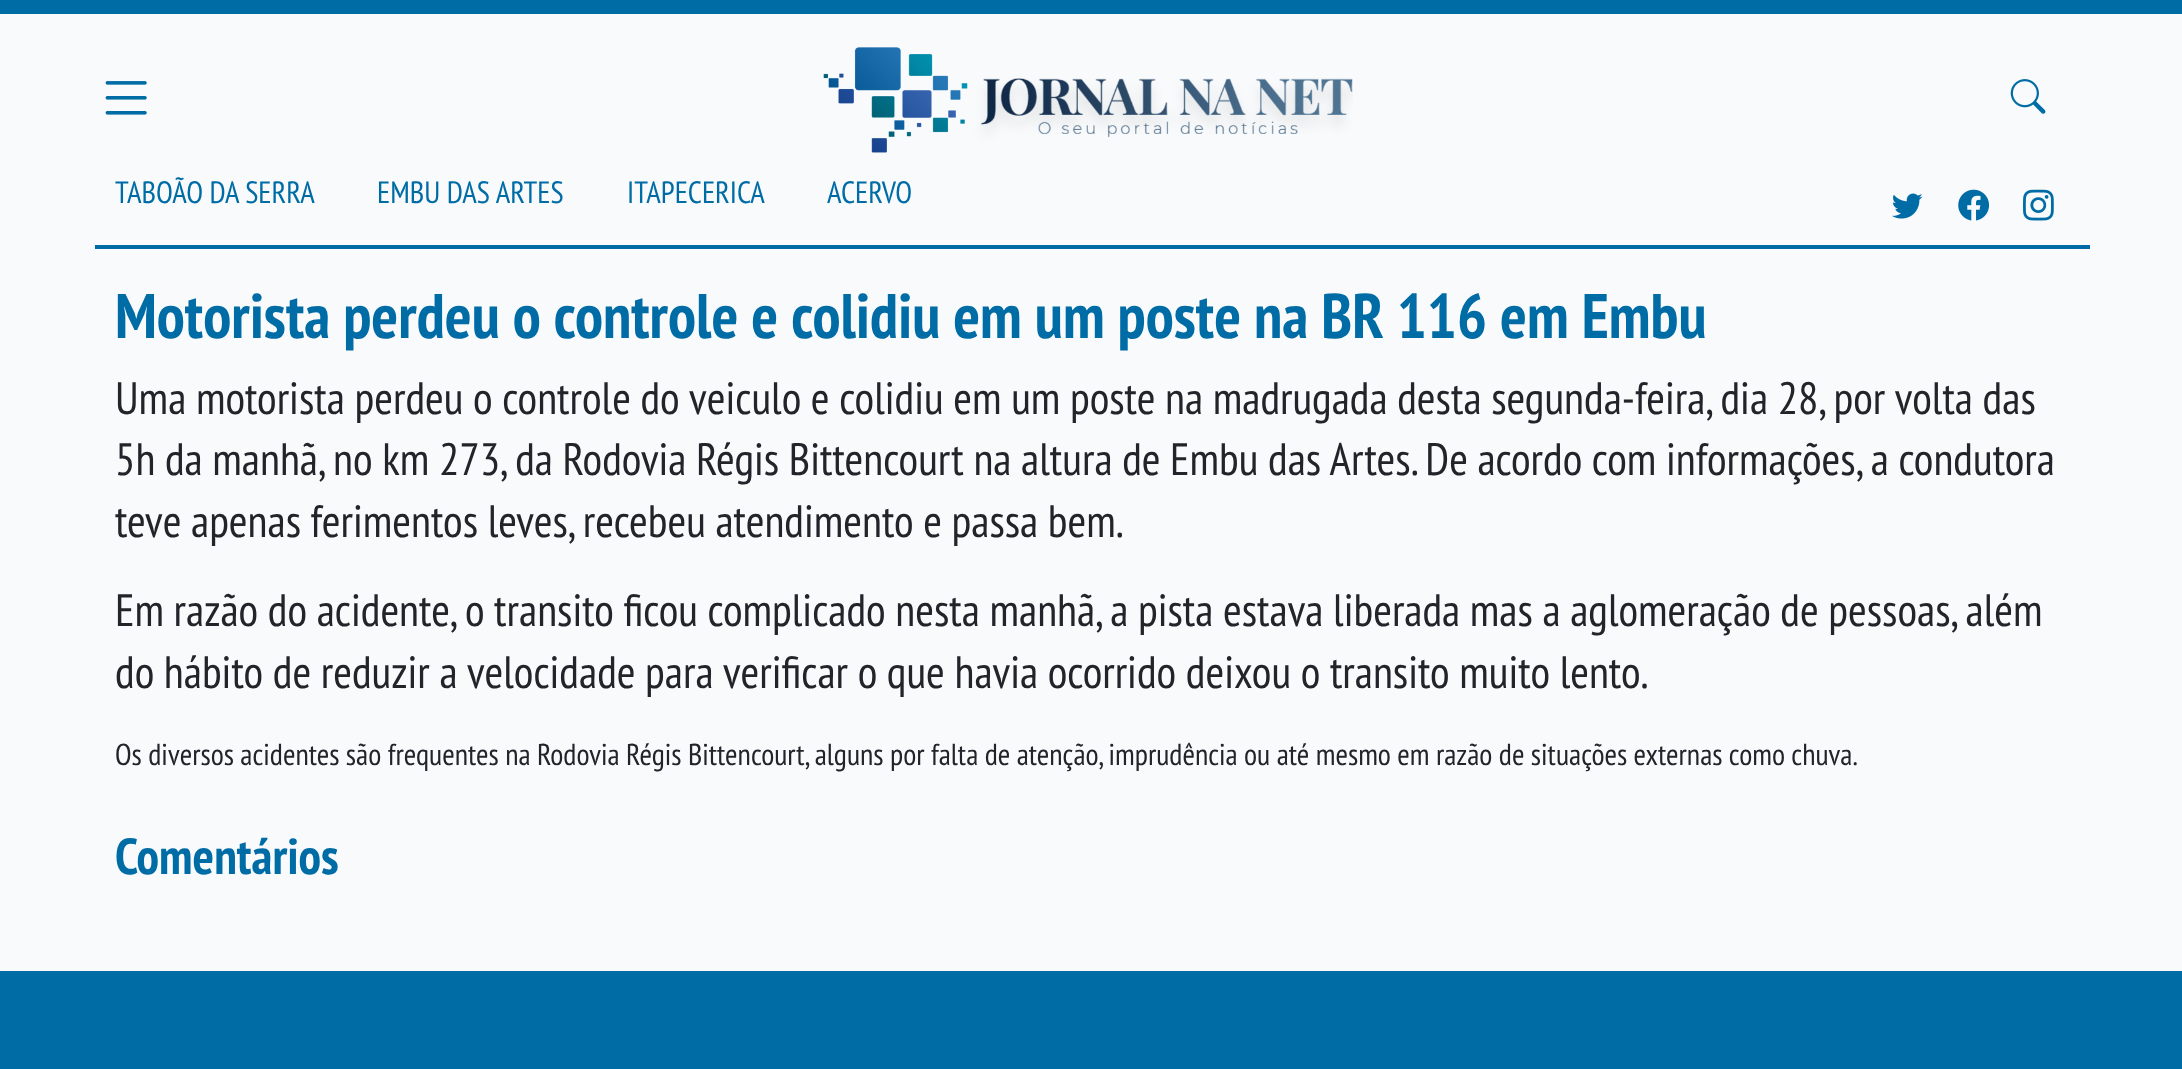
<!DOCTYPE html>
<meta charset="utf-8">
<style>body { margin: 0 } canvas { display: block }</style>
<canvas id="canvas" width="2182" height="1069"></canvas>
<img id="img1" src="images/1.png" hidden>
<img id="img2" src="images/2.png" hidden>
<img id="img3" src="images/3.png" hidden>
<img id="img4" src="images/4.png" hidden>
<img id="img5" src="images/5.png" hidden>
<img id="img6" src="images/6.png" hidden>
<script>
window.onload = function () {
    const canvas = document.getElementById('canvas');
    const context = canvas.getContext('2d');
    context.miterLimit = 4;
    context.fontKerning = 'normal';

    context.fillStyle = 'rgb(248, 250, 252)';
    context.fillRect(0, 0, 2182, 1069);
    context.fillStyle = 'rgb(0, 108, 166)';
    context.fillRect(0, 0, 2182, 14);
    context.fillRect(95, 245, 1995, 4);
    context.drawImage(document.getElementById('img1'), 105, 81, 42, 34);
    context.drawImage(document.getElementById('img2'), 823, 47, 530, 106);
    context.drawImage(document.getElementById('img3'), 2010, 79, 36, 35);
    context.drawImage(document.getElementById('img4'), 1892, 193, 31, 26);
    context.drawImage(document.getElementById('img5'), 1958, 189, 32, 32);
    context.drawImage(document.getElementById('img6'), 2023, 189, 31, 32);
    context.fillRect(0, 971, 2182, 98);
    context.font = '30.75px PT Sans Narrow';
    context.fillText('TABOÃO DA SERRA', 115, 203);
    context.fillText('EMBU DAS ARTES', 377, 203);
    context.fillText('ITAPECERICA', 627, 203);
    context.fillText('ACERVO', 827, 203);
    context.font = 'bold 63px PT Sans Narrow';
    context.fillText('Motorista perdeu o controle e colidiu em um poste na BR 116 em Embu', 115, 338);
    context.font = '45.35px PT Sans Narrow';
    context.fillStyle = 'rgb(33, 37, 41)';
    context.fillText('Uma motorista perdeu o controle do veiculo e colidiu em um poste na madrugada desta segunda-feira, dia 28, por volta das', 115, 414);
    context.fillText('5h da manhã, no km 273, da Rodovia Régis Bittencourt na altura de Embu das Artes. De acordo com informações, a condutora', 115, 475);
    context.fillText('teve apenas ferimentos leves, recebeu atendimento e passa bem.', 115, 537);
    context.fillText('Em razão do acidente, o transito ficou complicado nesta manhã, a pista estava liberada mas a aglomeração de pessoas, além', 115, 626);
    context.fillText('do hábito de reduzir a velocidade para verificar o que havia ocorrido deixou o transito muito lento.', 115, 688);
    context.font = '30.25px PT Sans Narrow';
    context.fillText('Os diversos acidentes são frequentes na Rodovia Régis Bittencourt, alguns por falta de atenção, imprudência ou até mesmo em razão de situações externas como chuva.', 115, 765);
    context.font = 'bold 50.5px PT Sans Narrow';
    context.fillStyle = 'rgb(0, 108, 166)';
    context.fillText('Comentários', 115, 874);
};
</script>
